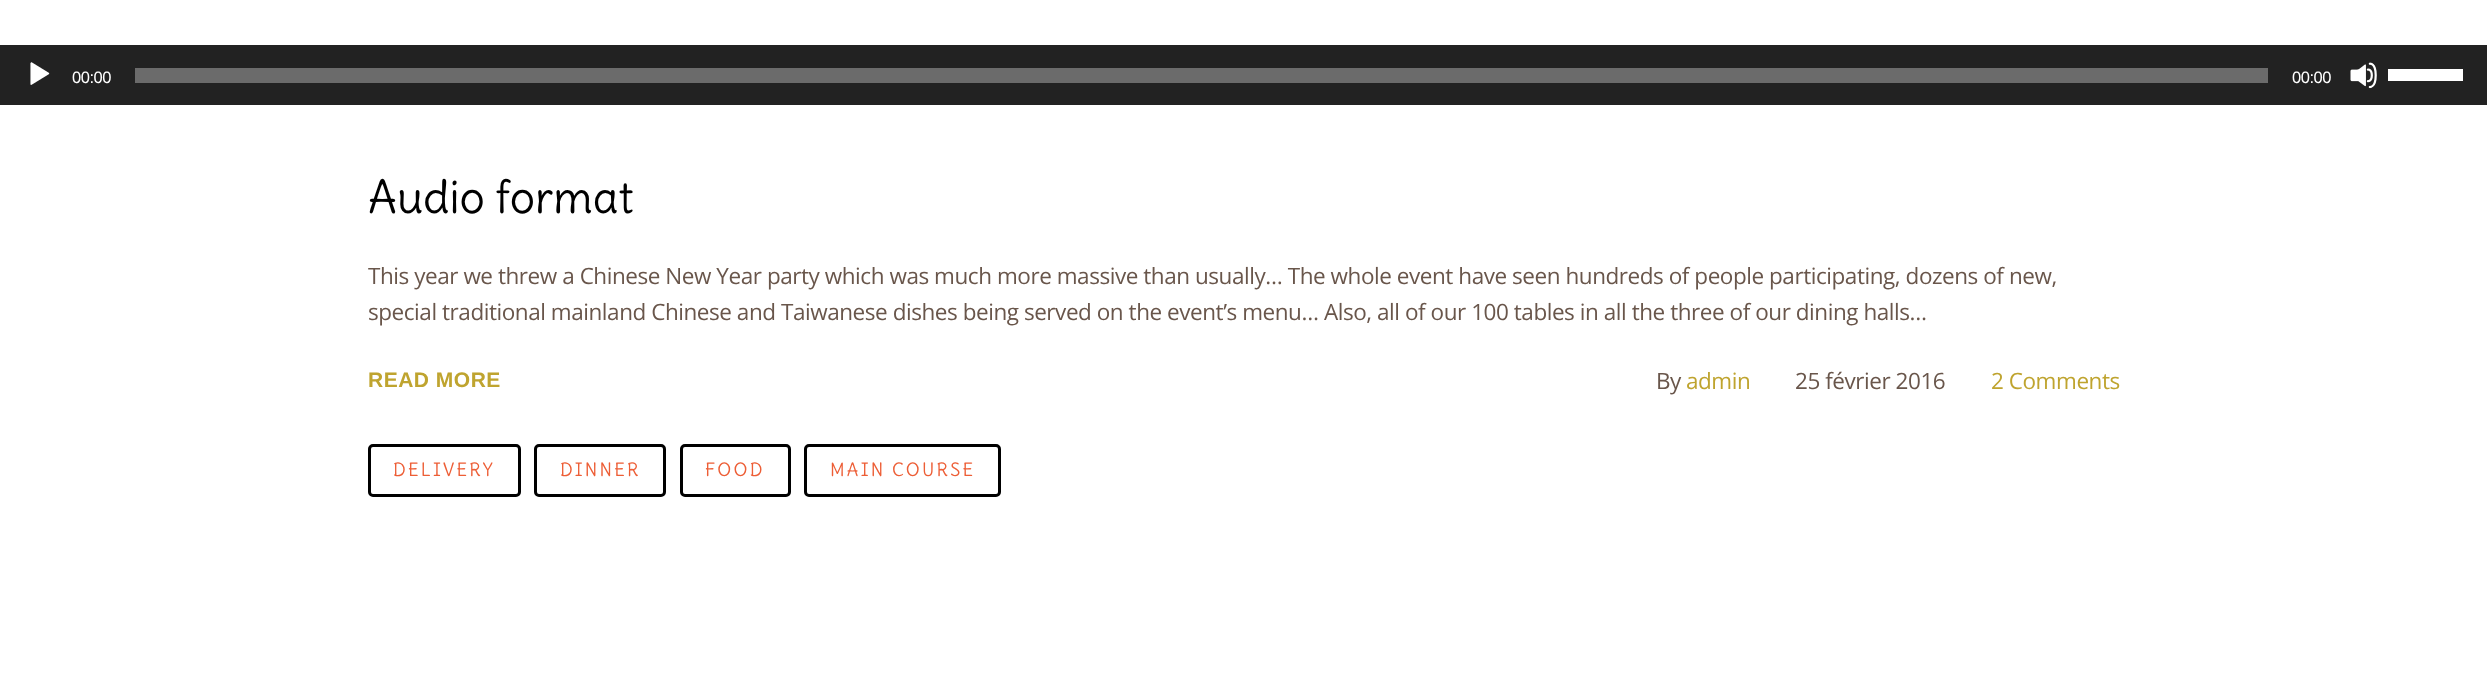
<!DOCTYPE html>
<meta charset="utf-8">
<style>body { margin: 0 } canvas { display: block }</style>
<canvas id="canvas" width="2487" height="688"></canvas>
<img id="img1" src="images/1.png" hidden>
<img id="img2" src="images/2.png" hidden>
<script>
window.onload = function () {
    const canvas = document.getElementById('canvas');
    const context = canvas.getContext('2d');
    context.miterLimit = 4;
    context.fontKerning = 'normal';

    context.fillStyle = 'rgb(255, 255, 255)';
    context.fillRect(0, 0, 2487, 688);
    context.fillStyle = 'rgb(34, 34, 34)';
    context.fillRect(0, 45, 2487, 60);
    context.drawImage(document.getElementById('img1'), 30, 62, 20, 23);
    context.fillStyle = 'rgb(107, 107, 107)';
    context.fillRect(135, 68, 2133, 15);
    context.drawImage(document.getElementById('img2'), 2350, 62, 27, 27);
    context.fillStyle = 'rgb(255, 255, 255)';
    context.fillRect(2388, 69, 75, 12);
    context.beginPath();
    context.roundRect(369.5, 445.5, 150, 50, 3.5);
    context.strokeStyle = 'rgb(0, 0, 0)';
    context.lineWidth = 3;
    context.stroke();
    context.beginPath();
    context.roundRect(535.5, 445.5, 129, 50, 3.5);
    context.stroke();
    context.beginPath();
    context.roundRect(681.5, 445.5, 108, 50, 3.5);
    context.stroke();
    context.beginPath();
    context.roundRect(805.5, 445.5, 194, 50, 3.5);
    context.stroke();
    context.letterSpacing = '-0.45px';
    context.font = '16.5px Liberation Sans';
    context.fillText('00:00', 72, 83);
    context.fillText('00:00', 2292, 83);
    context.letterSpacing = '0px';
    context.font = '45px Delius';
    context.fillStyle = 'rgb(0, 0, 0)';
    context.fillText('Audio format', 368, 213);
    context.letterSpacing = '-0.45px';
    context.font = '22.5px Open Sans';
    context.fillStyle = 'rgb(105, 86, 75)';
    context.fillText('This year we threw a Chinese New Year party which was much more massive than usually… The whole event have seen hundreds of people participating, dozens of new,', 368, 284);
    context.fillText('special traditional mainland Chinese and Taiwanese dishes being served on the event’s menu… Also, all of our 100 tables in all the three of our dining halls…', 368, 320);
    context.letterSpacing = '0.5px';
    context.font = 'bold 21px Liberation Sans';
    context.fillStyle = 'rgb(191, 164, 47)';
    context.fillText('READ MORE', 368, 387);
    context.letterSpacing = '-0.45px';
    context.font = '22.5px Open Sans';
    context.fillStyle = 'rgb(105, 86, 75)';
    context.fillText('By', 1656, 389);
    context.fillStyle = 'rgb(191, 164, 47)';
    context.fillText('admin', 1686, 389);
    context.fillStyle = 'rgb(105, 86, 75)';
    context.fillText('25 février 2016', 1795, 389);
    context.fillStyle = 'rgb(191, 164, 47)';
    context.fillText('2 Comments', 1991, 389);
    context.letterSpacing = '2.25px';
    context.font = '18px Delius';
    context.fillStyle = 'rgb(237, 94, 54)';
    context.fillText('DELIVERY', 393, 476);
    context.fillText('DINNER', 560, 476);
    context.fillText('FOOD', 705, 476);
    context.fillText('MAIN COURSE', 830, 476);
};
</script>
